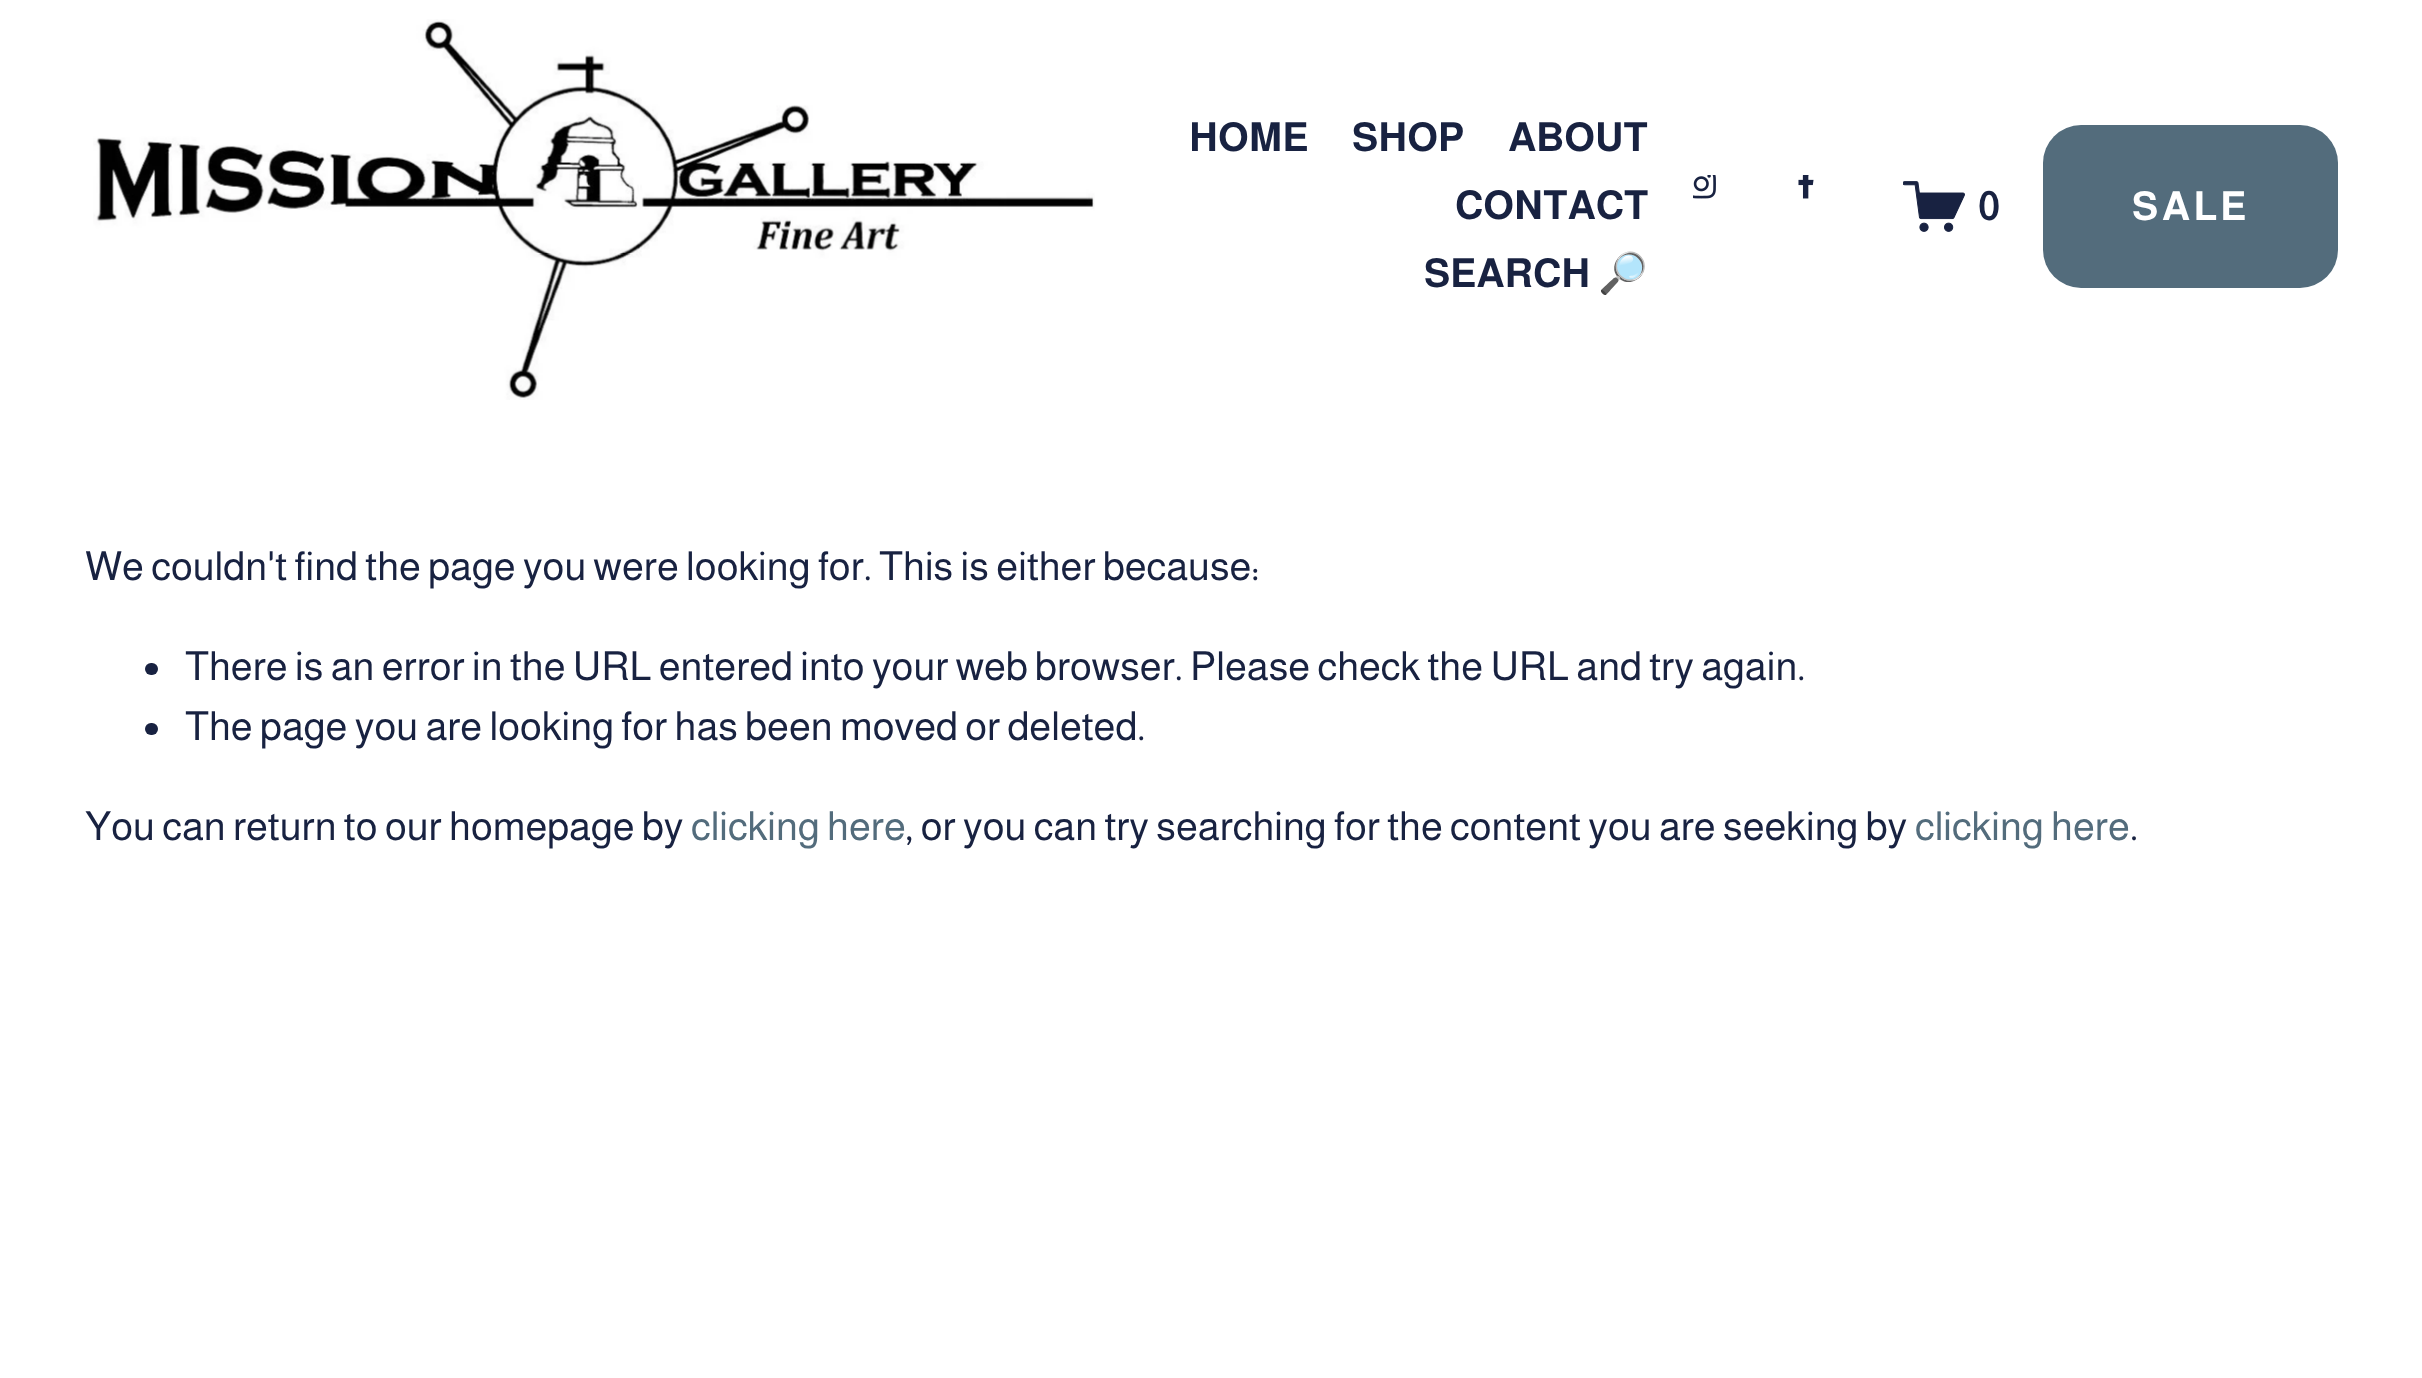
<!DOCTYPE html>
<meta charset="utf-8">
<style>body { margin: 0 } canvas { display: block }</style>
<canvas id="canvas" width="2422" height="1378"></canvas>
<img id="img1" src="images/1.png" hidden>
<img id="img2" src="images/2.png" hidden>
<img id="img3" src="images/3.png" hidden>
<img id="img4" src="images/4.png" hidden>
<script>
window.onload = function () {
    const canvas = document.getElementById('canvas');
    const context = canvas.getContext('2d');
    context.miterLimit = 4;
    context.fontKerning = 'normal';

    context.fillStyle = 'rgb(255, 255, 255)';
    context.fillRect(0, 0, 2422, 1378);
    context.drawImage(document.getElementById('img1'), 93, 19, 1002, 381);
    context.drawImage(document.getElementById('img2'), 1693, 175, 23, 24);
    context.drawImage(document.getElementById('img3'), 1798, 175, 16, 24);
    context.drawImage(document.getElementById('img4'), 1903, 181, 62, 51);
    context.fillStyle = 'rgb(83, 108, 124)';
    context.beginPath();
    context.roundRect(2043, 125, 295, 163, 38);
    context.fill();
    context.fillStyle = 'rgb(24, 34, 65)';
    context.beginPath();
    context.roundRect(145, 663, 13, 12, 6);
    context.fill();
    context.beginPath();
    context.roundRect(145, 723, 13, 12, 6);
    context.fill();
    context.font = 'bold 40px Almarai';
    context.fillText('HOME', 1189, 151);
    context.fillText('SHOP', 1352, 151);
    context.fillText('ABOUT', 1508, 151);
    context.fillText('CONTACT', 1455, 219);
    context.fillText('SEARCH', 1424, 287);
    context.font = 'bold 40px Noto Color Emoji';
    context.fillText('🔎', 1598, 287);
    context.font = 'bold 40px Almarai';
    context.fillText('0', 1978, 220);
    context.letterSpacing = '3.5px';
    context.fillStyle = 'rgb(255, 255, 255)';
    context.fillText('SALE', 2132, 220);
    context.letterSpacing = '0px';
    context.font = '40px Almarai';
    context.fillStyle = 'rgb(24, 34, 65)';
    context.fillText('We couldn\'t find the page you were looking for. This is either because:', 85, 580);
    context.fillText('There is an error in the URL entered into your web browser. Please check the URL and try again.', 185, 680);
    context.fillText('The page you are looking for has been moved or deleted.', 185, 740);
    context.fillText('You can return to our homepage by', 85, 840);
    context.fillStyle = 'rgb(83, 108, 124)';
    context.fillText('clicking here', 691, 840);
    context.fillStyle = 'rgb(24, 34, 65)';
    context.fillText(', or you can try searching for the content you are seeking by', 905, 840);
    context.fillStyle = 'rgb(83, 108, 124)';
    context.fillText('clicking here', 1915, 840);
    context.fillStyle = 'rgb(24, 34, 65)';
    context.fillText('.', 2130, 840);
};
</script>
